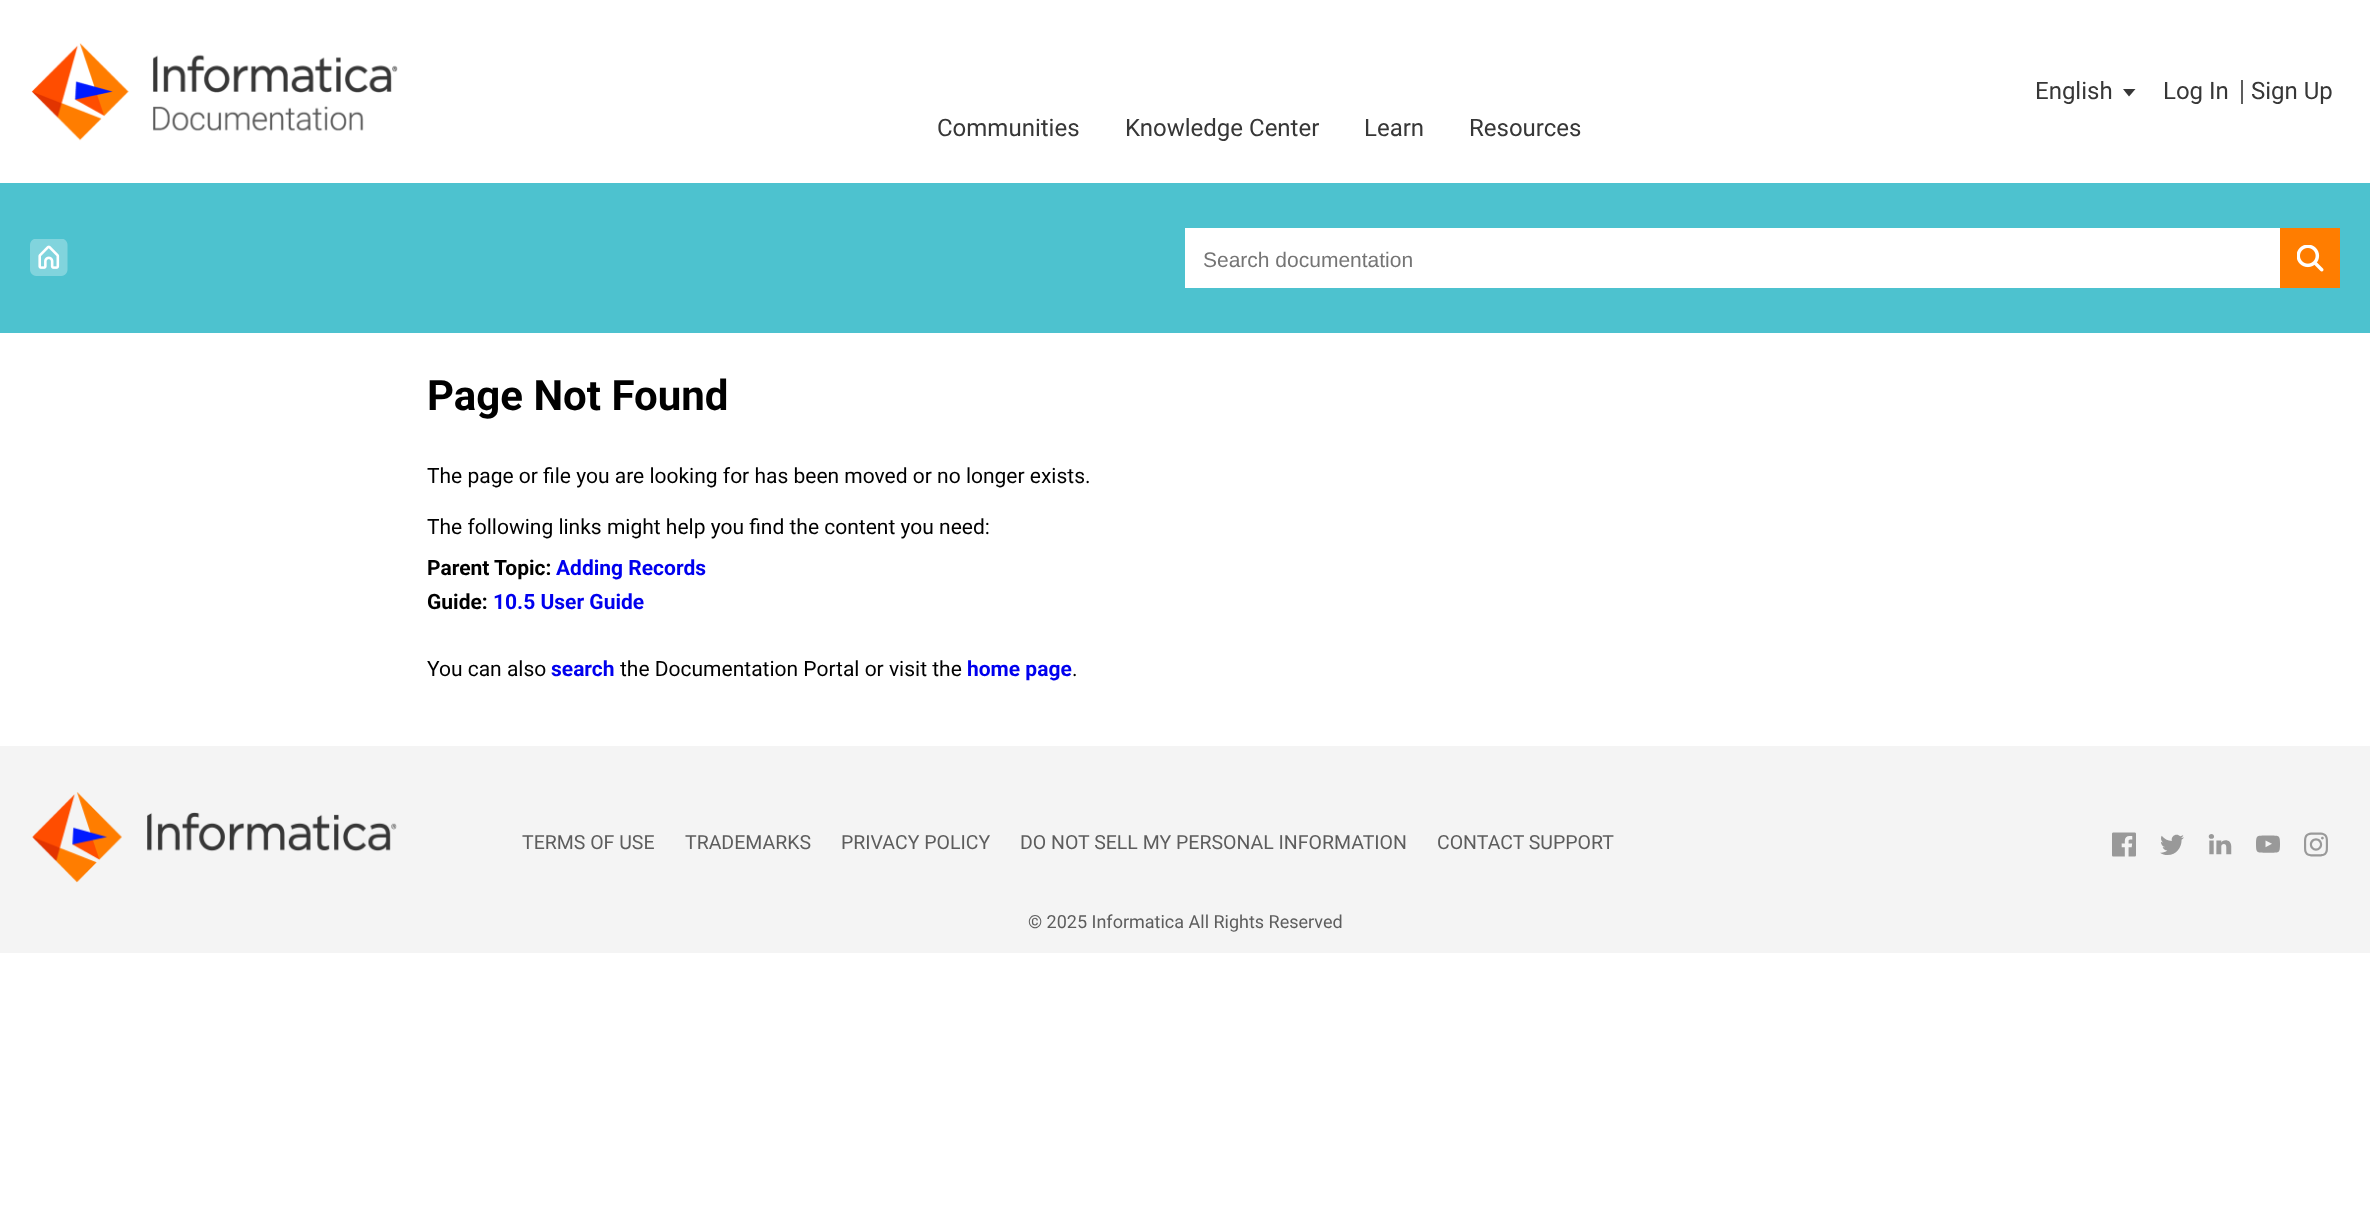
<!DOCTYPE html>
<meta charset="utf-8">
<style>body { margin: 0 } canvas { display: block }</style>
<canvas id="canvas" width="2370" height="1215"></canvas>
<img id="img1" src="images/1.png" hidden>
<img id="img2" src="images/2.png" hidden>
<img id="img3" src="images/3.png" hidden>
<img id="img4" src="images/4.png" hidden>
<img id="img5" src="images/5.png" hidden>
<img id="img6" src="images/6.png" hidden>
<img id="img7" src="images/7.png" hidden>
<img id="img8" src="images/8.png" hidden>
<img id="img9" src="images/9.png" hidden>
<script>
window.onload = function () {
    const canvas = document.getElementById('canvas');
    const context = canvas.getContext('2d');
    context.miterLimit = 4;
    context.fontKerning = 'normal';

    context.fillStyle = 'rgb(255, 255, 255)';
    context.fillRect(0, 0, 2370, 1215);
    context.drawImage(document.getElementById('img1'), 31, 43, 367, 98);
    context.fillStyle = 'rgb(55, 55, 55)';
    context.beginPath();
    context.moveTo(2135.5, 89);
    context.lineTo(2129, 96.5);
    context.lineTo(2123, 89);
    context.closePath();
    context.fill();
    context.fillStyle = 'rgb(93, 93, 93)';
    context.fillRect(2241, 80, 2, 24);
    context.fillStyle = 'rgb(77, 194, 207)';
    context.fillRect(0, 183, 2370, 150);
    context.drawImage(document.getElementById('img2'), 30, 239, 38, 37);
    context.fillStyle = 'rgb(255, 255, 255)';
    context.fillRect(1185, 228, 1095, 60);
    context.fillStyle = 'rgb(255, 125, 0)';
    context.fillRect(2280, 228, 60, 60);
    context.drawImage(document.getElementById('img3'), 2297, 245, 27, 27);
    context.fillStyle = 'rgb(244, 244, 244)';
    context.fillRect(0, 746, 2370, 207);
    context.drawImage(document.getElementById('img4'), 32, 792, 365, 91);
    context.drawImage(document.getElementById('img5'), 2112, 832, 24, 25);
    context.drawImage(document.getElementById('img6'), 2160, 834, 24, 21);
    context.drawImage(document.getElementById('img7'), 2208, 834, 24, 21);
    context.drawImage(document.getElementById('img8'), 2256, 835, 24, 18);
    context.drawImage(document.getElementById('img9'), 2304, 832, 24, 25);
    context.font = '24px Roboto';
    context.fillStyle = 'rgb(55, 55, 55)';
    context.fillText('English', 2035, 99);
    context.fillText('Log In', 2163, 99);
    context.fillText('Sign Up', 2251, 99);
    context.fillText('Communities', 937, 136);
    context.fillText('Knowledge Center', 1125, 136);
    context.fillText('Learn', 1364, 136);
    context.fillText('Resources', 1469, 136);
    context.font = '21px Liberation Sans';
    context.fillStyle = 'rgb(117, 117, 117)';
    context.fillText('Search documentation', 1203, 267);
    context.font = 'bold 42px Roboto';
    context.fillStyle = 'rgb(0, 0, 0)';
    context.fillText('Page Not Found', 427, 410);
    context.font = '21px Roboto';
    context.fillText('The page or file you are looking for has been moved or no longer exists.', 427, 483);
    context.fillText('The following links might help you find the content you need:', 427, 534);
    context.font = 'bold 21px Roboto';
    context.fillText('Parent Topic:', 427, 575);
    context.fillStyle = 'rgb(0, 0, 238)';
    context.fillText('Adding Records', 556, 575);
    context.fillStyle = 'rgb(0, 0, 0)';
    context.fillText('Guide:', 427, 609);
    context.fillStyle = 'rgb(0, 0, 238)';
    context.fillText('10.5 User Guide', 493, 609);
    context.font = '21px Roboto';
    context.fillStyle = 'rgb(0, 0, 0)';
    context.fillText('You can also', 427, 676);
    context.font = 'bold 21px Roboto';
    context.fillStyle = 'rgb(0, 0, 238)';
    context.fillText('search', 551, 676);
    context.font = '21px Roboto';
    context.fillStyle = 'rgb(0, 0, 0)';
    context.fillText('the Documentation Portal or visit the', 620, 676);
    context.font = 'bold 21px Roboto';
    context.fillStyle = 'rgb(0, 0, 238)';
    context.fillText('home page', 967, 676);
    context.font = '21px Roboto';
    context.fillStyle = 'rgb(0, 0, 0)';
    context.fillText('.', 1072, 676);
    context.font = '19.5px Roboto';
    context.fillStyle = 'rgb(93, 93, 93)';
    context.fillText('TERMS OF USE', 522, 849);
    context.fillText('TRADEMARKS', 685, 849);
    context.fillText('PRIVACY POLICY', 841, 849);
    context.fillText('DO NOT SELL MY PERSONAL INFORMATION', 1020, 849);
    context.fillText('CONTACT SUPPORT', 1437, 849);
    context.font = '18px Roboto';
    context.fillText('© 2025 Informatica All Rights Reserved', 1028, 928);
};
</script>
